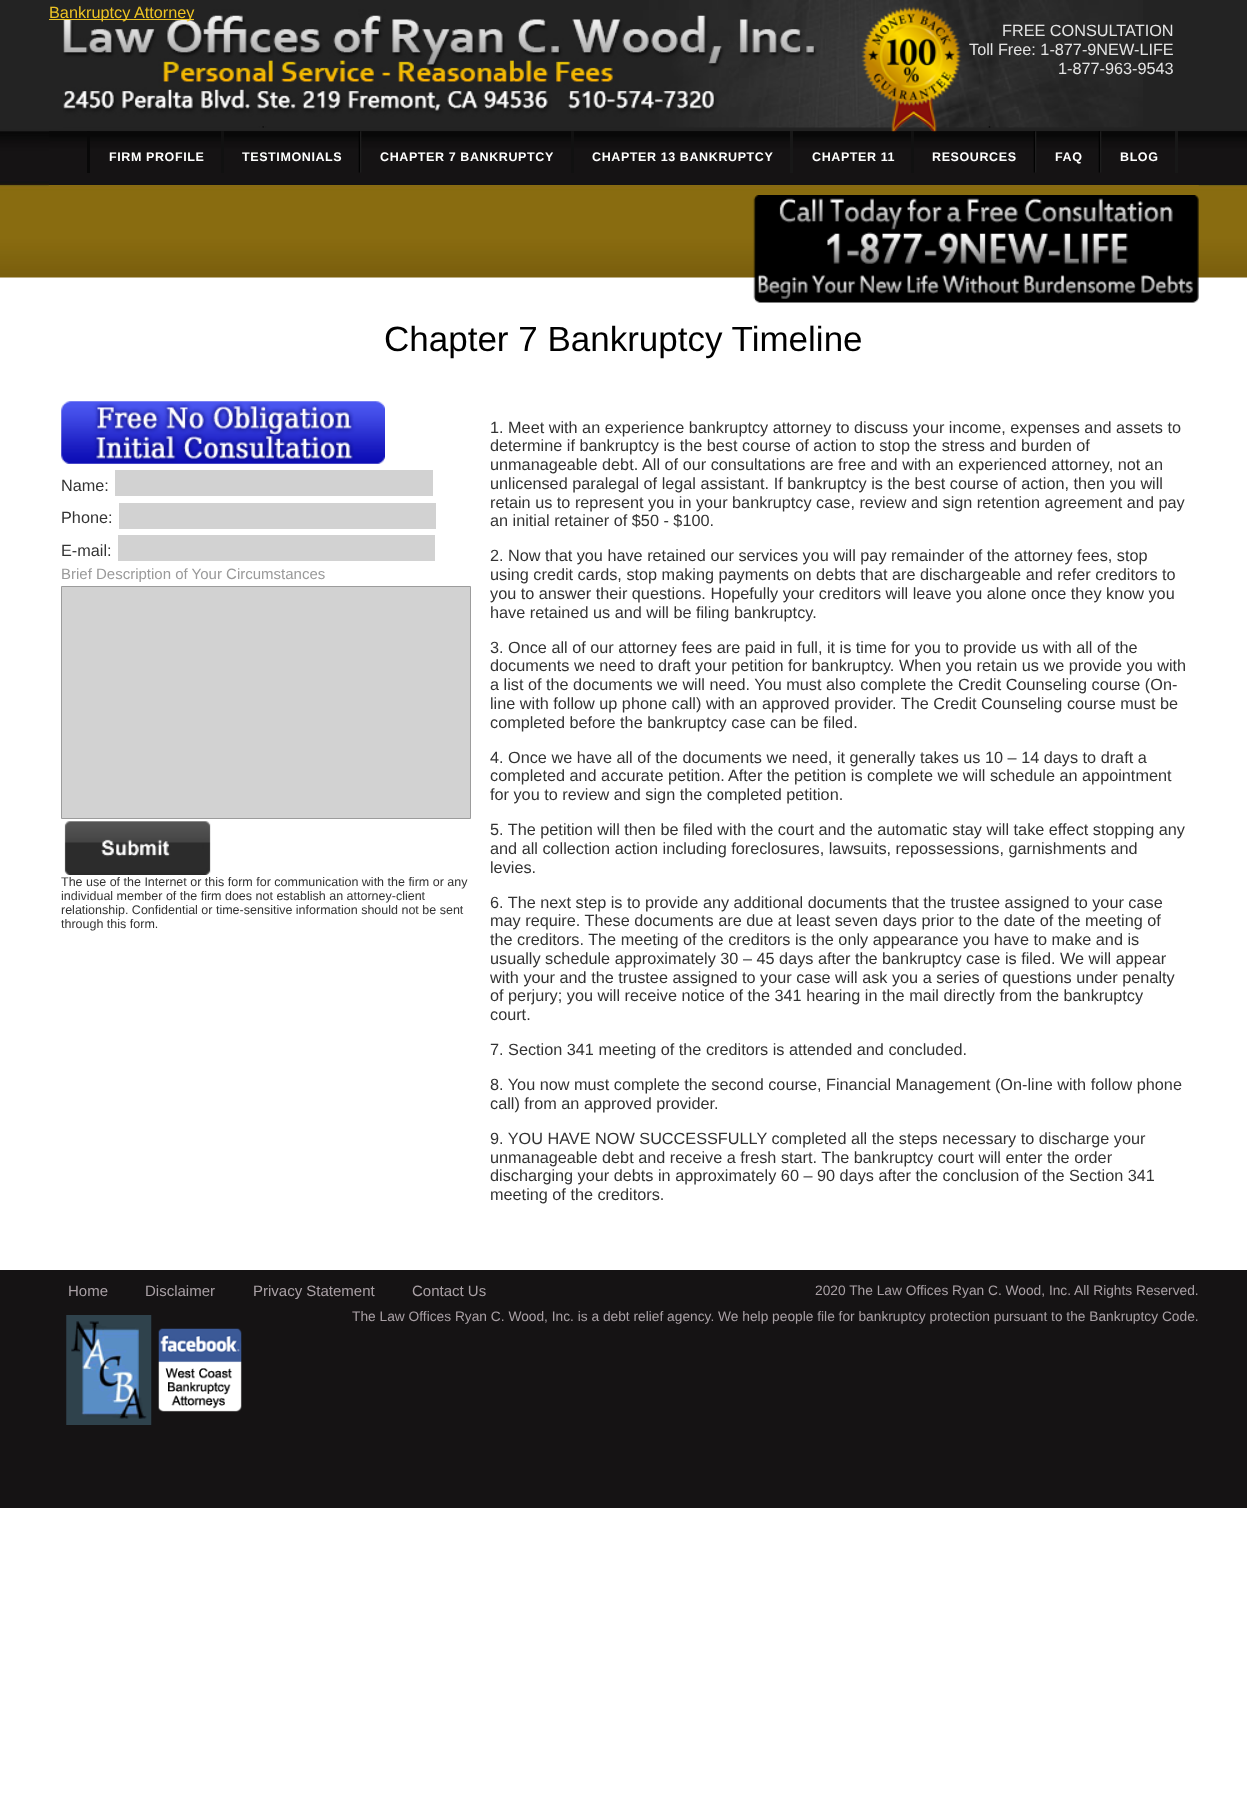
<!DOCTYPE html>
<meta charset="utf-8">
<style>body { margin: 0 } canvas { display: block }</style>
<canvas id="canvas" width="1247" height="1795"></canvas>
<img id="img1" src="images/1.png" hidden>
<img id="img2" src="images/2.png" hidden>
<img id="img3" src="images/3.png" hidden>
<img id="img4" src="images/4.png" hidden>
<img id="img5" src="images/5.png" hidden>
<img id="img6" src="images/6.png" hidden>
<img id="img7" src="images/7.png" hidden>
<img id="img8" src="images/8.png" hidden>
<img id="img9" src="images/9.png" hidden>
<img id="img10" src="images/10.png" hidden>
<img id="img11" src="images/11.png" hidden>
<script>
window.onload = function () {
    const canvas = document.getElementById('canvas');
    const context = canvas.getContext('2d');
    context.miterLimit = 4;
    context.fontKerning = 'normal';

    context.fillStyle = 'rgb(255, 255, 255)';
    context.fillRect(0, 0, 1247, 1795);
    context.drawImage(document.getElementById('img1'), 0, 0, 1247, 278);
    context.drawImage(document.getElementById('img2'), 63, 0, 1080, 128);
    context.fillStyle = 'rgb(237, 195, 36)';
    context.fillRect(49, 19, 145, 1);
    context.drawImage(document.getElementById('img3'), 861, 6, 101, 126);
    context.drawImage(document.getElementById('img4'), 49, 131, 1198, 54);
    context.fillStyle = 'rgb(8, 8, 8)';
    context.fillRect(87, 131, 3, 42);
    context.fillStyle = 'rgb(17, 17, 17)';
    context.fillRect(221, 131, 3, 42);
    context.drawImage(document.getElementById('img5'), 358, 131, 4, 42);
    context.fillRect(571, 131, 3, 42);
    context.fillStyle = 'rgb(24, 24, 24)';
    context.fillRect(790, 131, 3, 42);
    context.fillStyle = 'rgb(17, 17, 17)';
    context.fillRect(911, 131, 3, 42);
    context.drawImage(document.getElementById('img5'), 1033, 131, 4, 42);
    context.drawImage(document.getElementById('img5'), 1098, 131, 4, 42);
    context.fillStyle = 'rgb(24, 24, 24)';
    context.fillRect(1175, 131, 3, 42);
    context.drawImage(document.getElementById('img6'), 48, 185, 1151, 1);
    context.drawImage(document.getElementById('img7'), 753, 195, 446, 108);
    context.drawImage(document.getElementById('img8'), 61, 401, 324, 63);
    context.fillStyle = 'rgb(210, 210, 210)';
    context.fillRect(115, 470, 318, 26);
    context.fillRect(119, 503, 317, 26);
    context.fillRect(118, 535, 317, 26);
    context.beginPath();
    context.rect(61.5, 586.5, 409, 232);
    context.fill();
    context.strokeStyle = 'rgb(156, 156, 156)';
    context.stroke();
    context.drawImage(document.getElementById('img9'), 64, 821, 147, 54);
    context.fillStyle = 'rgb(21, 19, 20)';
    context.fillRect(0, 1270, 1247, 238);
    context.drawImage(document.getElementById('img10'), 66, 1315, 86, 110);
    context.drawImage(document.getElementById('img11'), 158, 1328, 84, 84);
    context.font = '16.25px Liberation Sans';
    context.fillStyle = 'rgb(237, 195, 36)';
    context.fillText('Bankruptcy Attorney', 49, 18);
    context.fillStyle = 'rgb(228, 228, 228)';
    context.fillText('FREE CONSULTATION', 1002, 36);
    context.fillText('Toll Free: 1-877-9NEW-LIFE', 969, 55);
    context.fillText('1-877-963-9543', 1058, 74);
    context.letterSpacing = '0.6px';
    context.font = 'bold 12.5px Liberation Sans';
    context.fillStyle = 'rgb(255, 255, 255)';
    context.fillText('FIRM PROFILE', 109, 161);
    context.fillText('TESTIMONIALS', 242, 161);
    context.fillText('CHAPTER 7 BANKRUPTCY', 380, 161);
    context.fillText('CHAPTER 13 BANKRUPTCY', 592, 161);
    context.fillText('CHAPTER 11', 812, 161);
    context.fillText('RESOURCES', 932, 161);
    context.fillText('FAQ', 1055, 161);
    context.fillText('BLOG', 1120, 161);
    context.letterSpacing = '0px';
    context.font = '35px Liberation Sans';
    context.fillStyle = 'rgb(0, 0, 0)';
    context.fillText('Chapter 7 Bankruptcy Timeline', 384, 351);
    context.font = '16.25px Liberation Sans';
    context.fillStyle = 'rgb(51, 51, 51)';
    context.fillText('Name:', 61, 491);
    context.fillText('Phone:', 61, 523);
    context.fillText('E-mail:', 61, 556);
    context.font = '15px Liberation Sans';
    context.fillStyle = 'rgb(154, 154, 154)';
    context.fillText('Brief Description of Your Circumstances', 61, 579);
    context.font = '12.5px Liberation Sans';
    context.fillStyle = 'rgb(51, 51, 51)';
    context.fillText('The use of the Internet or this form for communication with the firm or any', 61, 886);
    context.fillText('individual member of the firm does not establish an attorney-client', 61, 900);
    context.fillText('relationship. Confidential or time-sensitive information should not be sent', 61, 914);
    context.fillText('through this form.', 61, 928);
    context.font = '16.25px Liberation Sans';
    context.fillText('1. Meet with an experience bankruptcy attorney to discuss your income, expenses and assets to', 490, 433);
    context.fillText('determine if bankruptcy is the best course of action to stop the stress and burden of', 490, 451);
    context.fillText('unmanageable debt.', 490, 470);
    context.fillText('All of our consultations are free and with an experienced attorney, not an', 642, 470);
    context.fillText('unlicensed paralegal of legal assistant. If bankruptcy is the best course of action, then you will', 490, 489);
    context.fillText('retain us to represent you in your bankruptcy case, review and sign retention agreement and pay', 490, 508);
    context.fillText('an initial retainer of $50 - $100.', 490, 526);
    context.fillText('2. Now that you have retained our services you will pay remainder of the attorney fees, stop', 490, 561);
    context.fillText('using credit cards, stop making payments on debts that are dischargeable and refer creditors to', 490, 580);
    context.fillText('you to answer their questions. Hopefully your creditors will leave you alone once they know you', 490, 599);
    context.fillText('have retained us and will be filing bankruptcy.', 490, 618);
    context.fillText('3. Once all of our attorney fees are paid in full, it is time for you to provide us with all of the', 490, 653);
    context.fillText('documents we need to draft your petition for bankruptcy. When you retain us we provide you with', 490, 671);
    context.fillText('a list of the documents we will need. You must also complete the Credit Counseling course (On-', 490, 690);
    context.fillText('line with follow up phone call) with an approved provider. The Credit Counseling course must be', 490, 709);
    context.fillText('completed before the bankruptcy case can be filed.', 490, 728);
    context.fillText('4. Once we have all of the documents we need, it generally takes us 10 – 14 days to draft a', 490, 763);
    context.fillText('completed and accurate petition.', 490, 781);
    context.fillText('After the petition is complete we will schedule an appointment', 728, 781);
    context.fillText('for you to review and sign the completed petition.', 490, 800);
    context.fillText('5. The petition will then be filed with the court and the automatic stay will take effect stopping any', 490, 835);
    context.fillText('and all collection action including foreclosures, lawsuits, repossessions, garnishments and', 490, 854);
    context.fillText('levies.', 490, 873);
    context.fillText('6. The next step is to provide any additional documents that the trustee assigned to your case', 490, 908);
    context.fillText('may require. These documents are due at least seven days prior to the date of the meeting of', 490, 926);
    context.fillText('the creditors. The meeting of the creditors is the only appearance you have to make and is', 490, 945);
    context.fillText('usually schedule approximately 30 – 45 days after the bankruptcy case is filed. We will appear', 490, 964);
    context.fillText('with your and the trustee assigned to your case will ask you a series of questions under penalty', 490, 983);
    context.fillText('of perjury; you will receive notice of the 341 hearing in the mail directly from the bankruptcy', 490, 1001);
    context.fillText('court.', 490, 1020);
    context.fillText('7. Section 341 meeting of the creditors is attended and concluded.', 490, 1055);
    context.fillText('8. You now must complete the second course, Financial Management (On-line with follow phone', 490, 1090);
    context.fillText('call) from an approved provider.', 490, 1109);
    context.fillText('9. YOU HAVE NOW SUCCESSFULLY completed all the steps necessary to discharge your', 490, 1144);
    context.fillText('unmanageable debt and receive a fresh start. The bankruptcy court will enter the order', 490, 1163);
    context.fillText('discharging your debts in approximately 60 – 90 days after the conclusion of the Section 341', 490, 1181);
    context.fillText('meeting of the creditors.', 490, 1200);
    context.font = '15px Liberation Sans';
    context.fillStyle = 'rgb(169, 160, 165)';
    context.fillText('Home', 68, 1296);
    context.fillText('Disclaimer', 145, 1296);
    context.fillText('Privacy Statement', 253, 1296);
    context.fillText('Contact Us', 412, 1296);
    context.font = '13.75px Liberation Sans';
    context.fillText('2020 The Law Offices Ryan C. Wood, Inc. All Rights Reserved.', 815, 1295);
    context.fillText('The Law Offices Ryan C. Wood, Inc. is a debt relief agency. We help people file for bankruptcy protection pursuant to the Bankruptcy Code.', 352, 1321);
};
</script>
